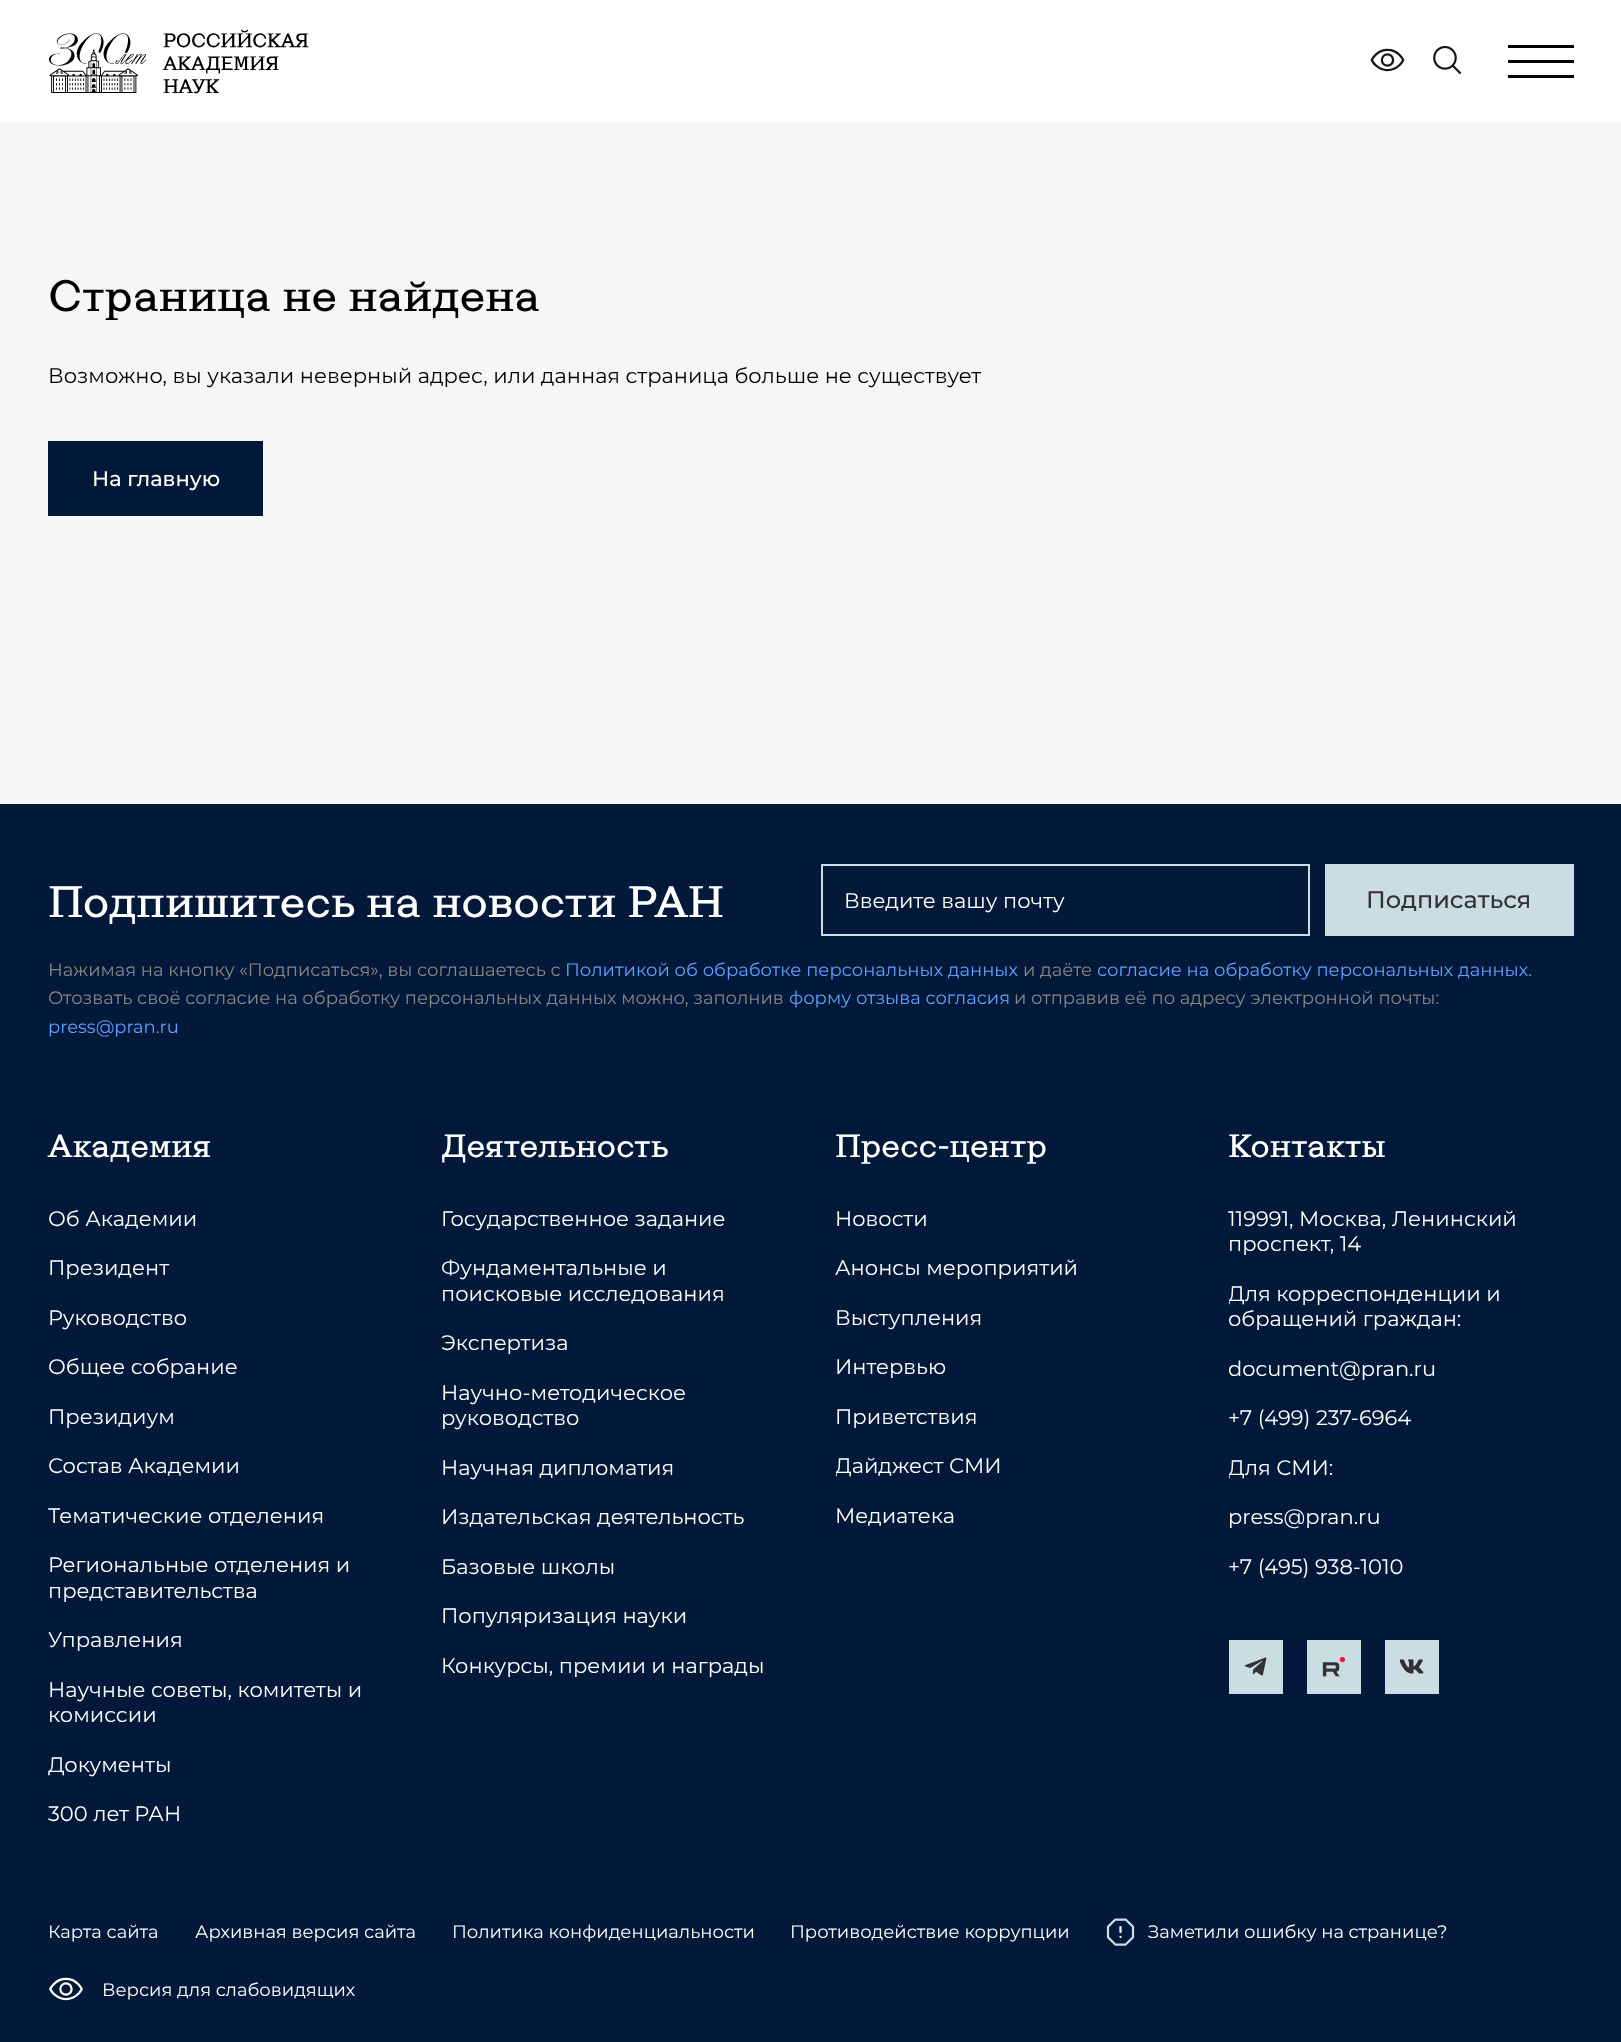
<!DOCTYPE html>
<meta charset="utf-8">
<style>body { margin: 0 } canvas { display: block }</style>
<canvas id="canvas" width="1621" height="2042"></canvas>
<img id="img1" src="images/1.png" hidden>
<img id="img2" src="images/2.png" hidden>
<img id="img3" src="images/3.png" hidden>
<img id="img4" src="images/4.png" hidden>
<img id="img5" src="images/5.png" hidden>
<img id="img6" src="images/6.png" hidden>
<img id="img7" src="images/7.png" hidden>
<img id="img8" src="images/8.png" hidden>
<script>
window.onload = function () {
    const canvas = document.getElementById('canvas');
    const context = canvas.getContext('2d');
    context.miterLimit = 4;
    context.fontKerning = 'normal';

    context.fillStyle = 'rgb(246, 246, 246)';
    context.fillRect(0, 0, 1621, 2042);
    context.fillStyle = 'rgb(255, 255, 255)';
    context.fillRect(0, 0, 1621, 123);
    context.drawImage(document.getElementById('img1'), 49, 29, 260, 65);
    context.drawImage(document.getElementById('img2'), 1370, 48, 35, 24);
    context.drawImage(document.getElementById('img3'), 1433, 45, 28, 29);
    context.fillStyle = 'rgb(0, 0, 0)';
    context.fillRect(1508, 45, 66, 3);
    context.fillRect(1508, 60, 66, 3);
    context.fillRect(1508, 75, 66, 3);
    context.fillStyle = 'rgb(3, 25, 58)';
    context.fillRect(48, 441, 215, 75);
    context.fillRect(0, 804, 1621, 1238);
    context.strokeStyle = 'rgb(202, 221, 227)';
    context.lineWidth = 2;
    context.strokeRect(822, 865, 487, 70);
    context.fillStyle = 'rgb(202, 221, 227)';
    context.fillRect(1325, 864, 249, 72);
    context.fillRect(1229, 1640, 54, 54);
    context.drawImage(document.getElementById('img4'), 1244, 1657, 23, 19);
    context.fillRect(1307, 1640, 54, 54);
    context.drawImage(document.getElementById('img5'), 1322, 1656, 23, 21);
    context.fillRect(1385, 1640, 54, 54);
    context.drawImage(document.getElementById('img6'), 1400, 1659, 24, 15);
    context.drawImage(document.getElementById('img7'), 1106, 1918, 29, 28);
    context.drawImage(document.getElementById('img8'), 49, 1977, 34, 24);
    context.font = '500 45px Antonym';
    context.fillStyle = 'rgb(0, 0, 0)';
    context.fillText('Страница не найдена', 48, 311);
    context.font = '21px Montserrat';
    context.fillText('Возможно, вы указали неверный адрес, или данная страница больше не существует', 48, 383);
    context.font = '500 21px Montserrat';
    context.fillStyle = 'rgb(255, 255, 255)';
    context.fillText('На главную', 92, 486);
    context.font = '500 45px Antonym';
    context.fillText('Подпишитесь на новости РАН', 48, 917);
    context.font = '21px Montserrat';
    context.fillText('Введите вашу почту', 844, 908);
    context.font = '500 24px Montserrat';
    context.fillStyle = 'rgb(51, 49, 50)';
    context.fillText('Подписаться', 1366, 908);
    context.font = '18px Montserrat';
    context.fillStyle = 'rgb(135, 135, 135)';
    context.fillText('Нажимая на кнопку «Подписаться», вы соглашаетесь с', 48, 976);
    context.fillStyle = 'rgb(97, 160, 255)';
    context.fillText('Политикой об обработке персональных данных', 565, 976);
    context.fillStyle = 'rgb(135, 135, 135)';
    context.fillText('и даёте', 1023, 976);
    context.fillStyle = 'rgb(97, 160, 255)';
    context.fillText('согласие на обработку персональных данных.', 1097, 976);
    context.fillStyle = 'rgb(135, 135, 135)';
    context.fillText('Отозвать своё согласие на обработку персональных данных можно, заполнив', 48, 1004);
    context.fillStyle = 'rgb(97, 160, 255)';
    context.fillText('форму отзыва согласия', 789, 1004);
    context.fillStyle = 'rgb(135, 135, 135)';
    context.fillText('и отправив её по адресу электронной почты:', 1014, 1004);
    context.fillStyle = 'rgb(97, 160, 255)';
    context.fillText('press@pran.ru', 48, 1033);
    context.font = '500 33px Antonym';
    context.fillStyle = 'rgb(255, 255, 255)';
    context.fillText('Академия', 48, 1157);
    context.font = '21px Montserrat';
    context.fillText('Об Академии', 48, 1226);
    context.fillText('Президент', 48, 1275);
    context.fillText('Руководство', 48, 1325);
    context.fillText('Общее собрание', 48, 1374);
    context.fillText('Президиум', 48, 1424);
    context.fillText('Состав Академии', 48, 1473);
    context.fillText('Тематические отделения', 48, 1523);
    context.fillText('Региональные отделения и', 48, 1572);
    context.fillText('представительства', 48, 1598);
    context.fillText('Управления', 48, 1647);
    context.fillText('Научные советы, комитеты и', 48, 1697);
    context.fillText('комиссии', 48, 1722);
    context.fillText('Документы', 48, 1772);
    context.fillText('300 лет РАН', 48, 1821);
    context.font = '500 33px Antonym';
    context.fillText('Деятельность', 441, 1157);
    context.font = '21px Montserrat';
    context.fillText('Государственное задание', 441, 1226);
    context.fillText('Фундаментальные и', 441, 1275);
    context.fillText('поисковые исследования', 441, 1301);
    context.fillText('Экспертиза', 441, 1350);
    context.fillText('Научно-методическое', 441, 1400);
    context.fillText('руководство', 441, 1425);
    context.fillText('Научная дипломатия', 441, 1475);
    context.fillText('Издательская деятельность', 441, 1524);
    context.fillText('Базовые школы', 441, 1574);
    context.fillText('Популяризация науки', 441, 1623);
    context.fillText('Конкурсы, премии и награды', 441, 1673);
    context.font = '500 33px Antonym';
    context.fillText('Пресс-центр', 835, 1157);
    context.font = '21px Montserrat';
    context.fillText('Новости', 835, 1226);
    context.fillText('Анонсы мероприятий', 835, 1275);
    context.fillText('Выступления', 835, 1325);
    context.fillText('Интервью', 835, 1374);
    context.fillText('Приветствия', 835, 1424);
    context.save();
    context.beginPath();
    context.rect(836, 1176, 345, 353);
    context.clip();
    context.fillText('Дайджест СМИ', 835, 1473);
    context.restore();
    context.fillText('Медиатека', 835, 1523);
    context.font = '500 33px Antonym';
    context.fillText('Контакты', 1228, 1157);
    context.font = '21px Montserrat';
    context.fillText('119991, Москва, Ленинский', 1228, 1226);
    context.fillText('проспект, 14', 1228, 1251);
    context.save();
    context.beginPath();
    context.rect(1229, 1176, 345, 587);
    context.clip();
    context.fillText('Для корреспонденции и', 1228, 1301);
    context.restore();
    context.fillText('обращений граждан:', 1228, 1326);
    context.fillText('document@pran.ru', 1228, 1376);
    context.fillText('+7 (499) 237-6964', 1228, 1425);
    context.save();
    context.beginPath();
    context.rect(1229, 1176, 345, 587);
    context.clip();
    context.fillText('Для СМИ:', 1228, 1475);
    context.restore();
    context.fillText('press@pran.ru', 1228, 1524);
    context.fillText('+7 (495) 938-1010', 1228, 1574);
    context.font = '18px Montserrat';
    context.fillText('Карта сайта', 48, 1938);
    context.fillText('Архивная версия сайта', 195, 1938);
    context.fillText('Политика конфиденциальности', 452, 1938);
    context.fillText('Противодействие коррупции', 790, 1938);
    context.fillText('Заметили ошибку на странице?', 1148, 1938);
    context.fillText('Версия для слабовидящих', 102, 1996);
};
</script>
